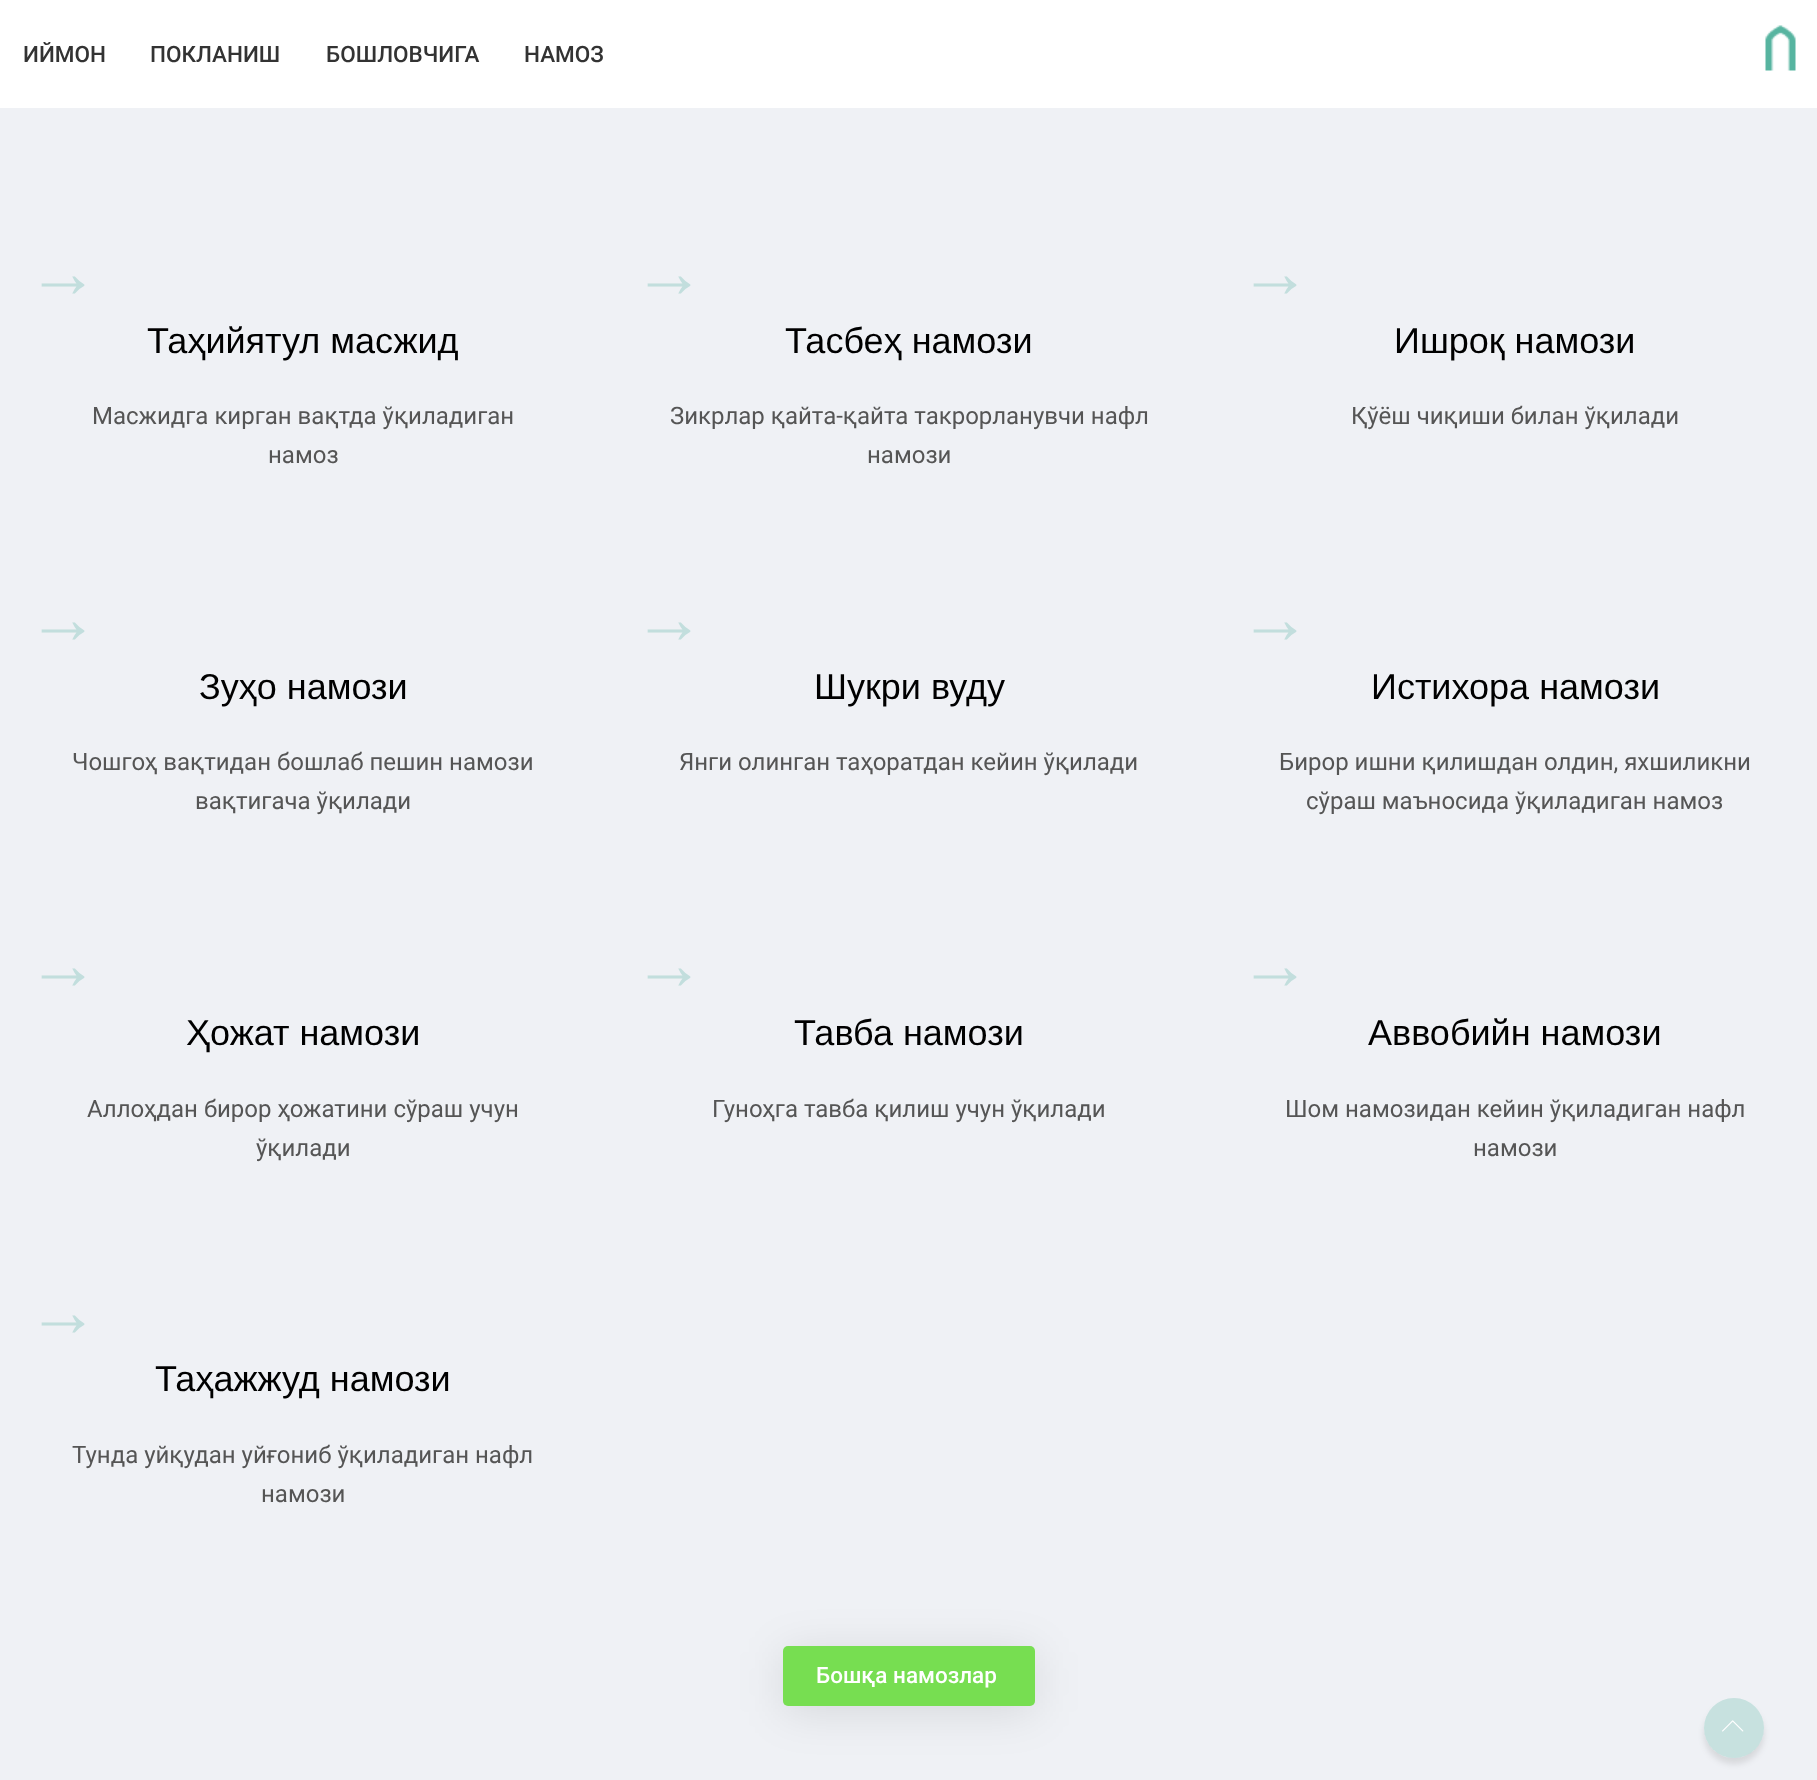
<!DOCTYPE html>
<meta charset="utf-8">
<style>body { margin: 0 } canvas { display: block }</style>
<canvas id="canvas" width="1817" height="1780"></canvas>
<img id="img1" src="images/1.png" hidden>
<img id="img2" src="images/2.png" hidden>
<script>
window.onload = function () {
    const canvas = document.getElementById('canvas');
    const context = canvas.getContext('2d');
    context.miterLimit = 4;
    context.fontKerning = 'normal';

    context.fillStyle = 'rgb(255, 255, 255)';
    context.fillRect(0, 0, 1817, 1780);
    context.drawImage(document.getElementById('img1'), 1765, 25, 31, 46);
    context.fillStyle = 'rgb(239, 241, 245)';
    context.fillRect(0, 108, 1817, 1672);
    context.fillStyle = 'rgba(0, 0, 0, 0.1)';
    context.filter = 'blur(22.5px)';
    context.beginPath();
    context.roundRect(783, 1652, 252, 60, 5);
    context.fill();
    context.filter = 'none';
    context.fillStyle = 'rgb(119, 222, 81)';
    context.beginPath();
    context.roundRect(783, 1646, 252, 60, 5);
    context.fill();
    context.save();
    context.beginPath();
    context.moveTo(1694, 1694);
    context.lineTo(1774, 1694);
    context.lineTo(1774, 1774);
    context.lineTo(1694, 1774);
    context.closePath();
    context.moveTo(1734, 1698);
    context.bezierCurveTo(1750.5, 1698, 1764, 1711.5, 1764, 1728);
    context.bezierCurveTo(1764, 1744.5, 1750.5, 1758, 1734, 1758);
    context.bezierCurveTo(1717.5, 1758, 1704, 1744.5, 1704, 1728);
    context.bezierCurveTo(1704, 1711.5, 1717.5, 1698, 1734, 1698);
    context.closePath();
    context.clip('evenodd');
    context.fillStyle = 'rgba(0, 0, 0, 0.1)';
    context.filter = 'blur(3px)';
    context.beginPath();
    context.roundRect(1704, 1704, 60, 60, 30);
    context.fill();
    context.filter = 'none';
    context.restore();
    context.fillStyle = 'rgba(80, 181, 160, 0.25)';
    context.beginPath();
    context.arc(1734, 1728, 30, 0, 2 * Math.PI);
    context.fill();
    context.drawImage(document.getElementById('img2'), 1722, 1720, 22, 12);
    context.font = '500 22.5px Roboto';
    context.fillStyle = 'rgb(51, 51, 51)';
    context.fillText('ИЙМОН', 23, 62);
    context.fillText('ПОКЛАНИШ', 150, 62);
    context.fillText('БОШЛОВЧИГА', 326, 62);
    context.fillText('НАМОЗ', 524, 62);
    context.font = '72px Liberation Sans';
    context.fillStyle = 'rgb(194, 222, 221)';
    context.fillText('→', 27, 297);
    context.font = '36px Liberation Sans';
    context.fillStyle = 'rgb(0, 0, 0)';
    context.fillText('Таҳийятул масжид', 147, 353);
    context.font = '24px Roboto';
    context.fillStyle = 'rgb(85, 85, 85)';
    context.fillText('Масжидга кирган вақтда ўқиладиган', 92, 424);
    context.fillText('намоз', 268, 463);
    context.font = '72px Liberation Sans';
    context.fillStyle = 'rgb(194, 222, 221)';
    context.fillText('→', 633, 297);
    context.font = '36px Liberation Sans';
    context.fillStyle = 'rgb(0, 0, 0)';
    context.fillText('Тасбеҳ намози', 785, 353);
    context.font = '24px Roboto';
    context.fillStyle = 'rgb(85, 85, 85)';
    context.fillText('Зикрлар қайта-қайта такрорланувчи нафл', 670, 424);
    context.fillText('намози', 867, 463);
    context.font = '72px Liberation Sans';
    context.fillStyle = 'rgb(194, 222, 221)';
    context.fillText('→', 1239, 297);
    context.font = '36px Liberation Sans';
    context.fillStyle = 'rgb(0, 0, 0)';
    context.fillText('Ишроқ намози', 1394, 353);
    context.font = '24px Roboto';
    context.fillStyle = 'rgb(85, 85, 85)';
    context.fillText('Қўёш чиқиши билан ўқилади', 1351, 424);
    context.font = '72px Liberation Sans';
    context.fillStyle = 'rgb(194, 222, 221)';
    context.fillText('→', 27, 643);
    context.font = '36px Liberation Sans';
    context.fillStyle = 'rgb(0, 0, 0)';
    context.fillText('Зуҳо намози', 199, 699);
    context.font = '24px Roboto';
    context.fillStyle = 'rgb(85, 85, 85)';
    context.fillText('Чошгоҳ вақтидан бошлаб пешин намози', 72, 770);
    context.fillText('вақтигача ўқилади', 195, 809);
    context.font = '72px Liberation Sans';
    context.fillStyle = 'rgb(194, 222, 221)';
    context.fillText('→', 633, 643);
    context.font = '36px Liberation Sans';
    context.fillStyle = 'rgb(0, 0, 0)';
    context.fillText('Шукри вуду', 814, 699);
    context.font = '24px Roboto';
    context.fillStyle = 'rgb(85, 85, 85)';
    context.fillText('Янги олинган таҳоратдан кейин ўқилади', 679, 770);
    context.font = '72px Liberation Sans';
    context.fillStyle = 'rgb(194, 222, 221)';
    context.fillText('→', 1239, 643);
    context.font = '36px Liberation Sans';
    context.fillStyle = 'rgb(0, 0, 0)';
    context.fillText('Истихора намози', 1371, 699);
    context.font = '24px Roboto';
    context.fillStyle = 'rgb(85, 85, 85)';
    context.fillText('Бирор ишни қилишдан олдин, яхшиликни', 1279, 770);
    context.fillText('сўраш маъносида ўқиладиган намоз', 1306, 809);
    context.font = '72px Liberation Sans';
    context.fillStyle = 'rgb(194, 222, 221)';
    context.fillText('→', 27, 989);
    context.font = '36px Liberation Sans';
    context.fillStyle = 'rgb(0, 0, 0)';
    context.fillText('Ҳожат намози', 186, 1045);
    context.font = '24px Roboto';
    context.fillStyle = 'rgb(85, 85, 85)';
    context.fillText('Аллоҳдан бирор ҳожатини сўраш учун', 87, 1117);
    context.fillText('ўқилади', 256, 1156);
    context.font = '72px Liberation Sans';
    context.fillStyle = 'rgb(194, 222, 221)';
    context.fillText('→', 633, 989);
    context.font = '36px Liberation Sans';
    context.fillStyle = 'rgb(0, 0, 0)';
    context.fillText('Тавба намози', 794, 1045);
    context.font = '24px Roboto';
    context.fillStyle = 'rgb(85, 85, 85)';
    context.fillText('Гуноҳга тавба қилиш учун ўқилади', 712, 1117);
    context.font = '72px Liberation Sans';
    context.fillStyle = 'rgb(194, 222, 221)';
    context.fillText('→', 1239, 989);
    context.font = '36px Liberation Sans';
    context.fillStyle = 'rgb(0, 0, 0)';
    context.fillText('Аввобийн намози', 1368, 1045);
    context.font = '24px Roboto';
    context.fillStyle = 'rgb(85, 85, 85)';
    context.fillText('Шом намозидан кейин ўқиладиган нафл', 1285, 1117);
    context.fillText('намози', 1473, 1156);
    context.font = '72px Liberation Sans';
    context.fillStyle = 'rgb(194, 222, 221)';
    context.fillText('→', 27, 1336);
    context.font = '36px Liberation Sans';
    context.fillStyle = 'rgb(0, 0, 0)';
    context.fillText('Таҳажжуд намози', 155, 1391);
    context.font = '24px Roboto';
    context.fillStyle = 'rgb(85, 85, 85)';
    context.fillText('Тунда уйқудан уйғониб ўқиладиган нафл', 72, 1463);
    context.fillText('намози', 261, 1502);
    context.font = '500 22.5px Roboto';
    context.fillStyle = 'rgb(255, 255, 255)';
    context.fillText('Бошқа намозлар', 816, 1683);
};
</script>
